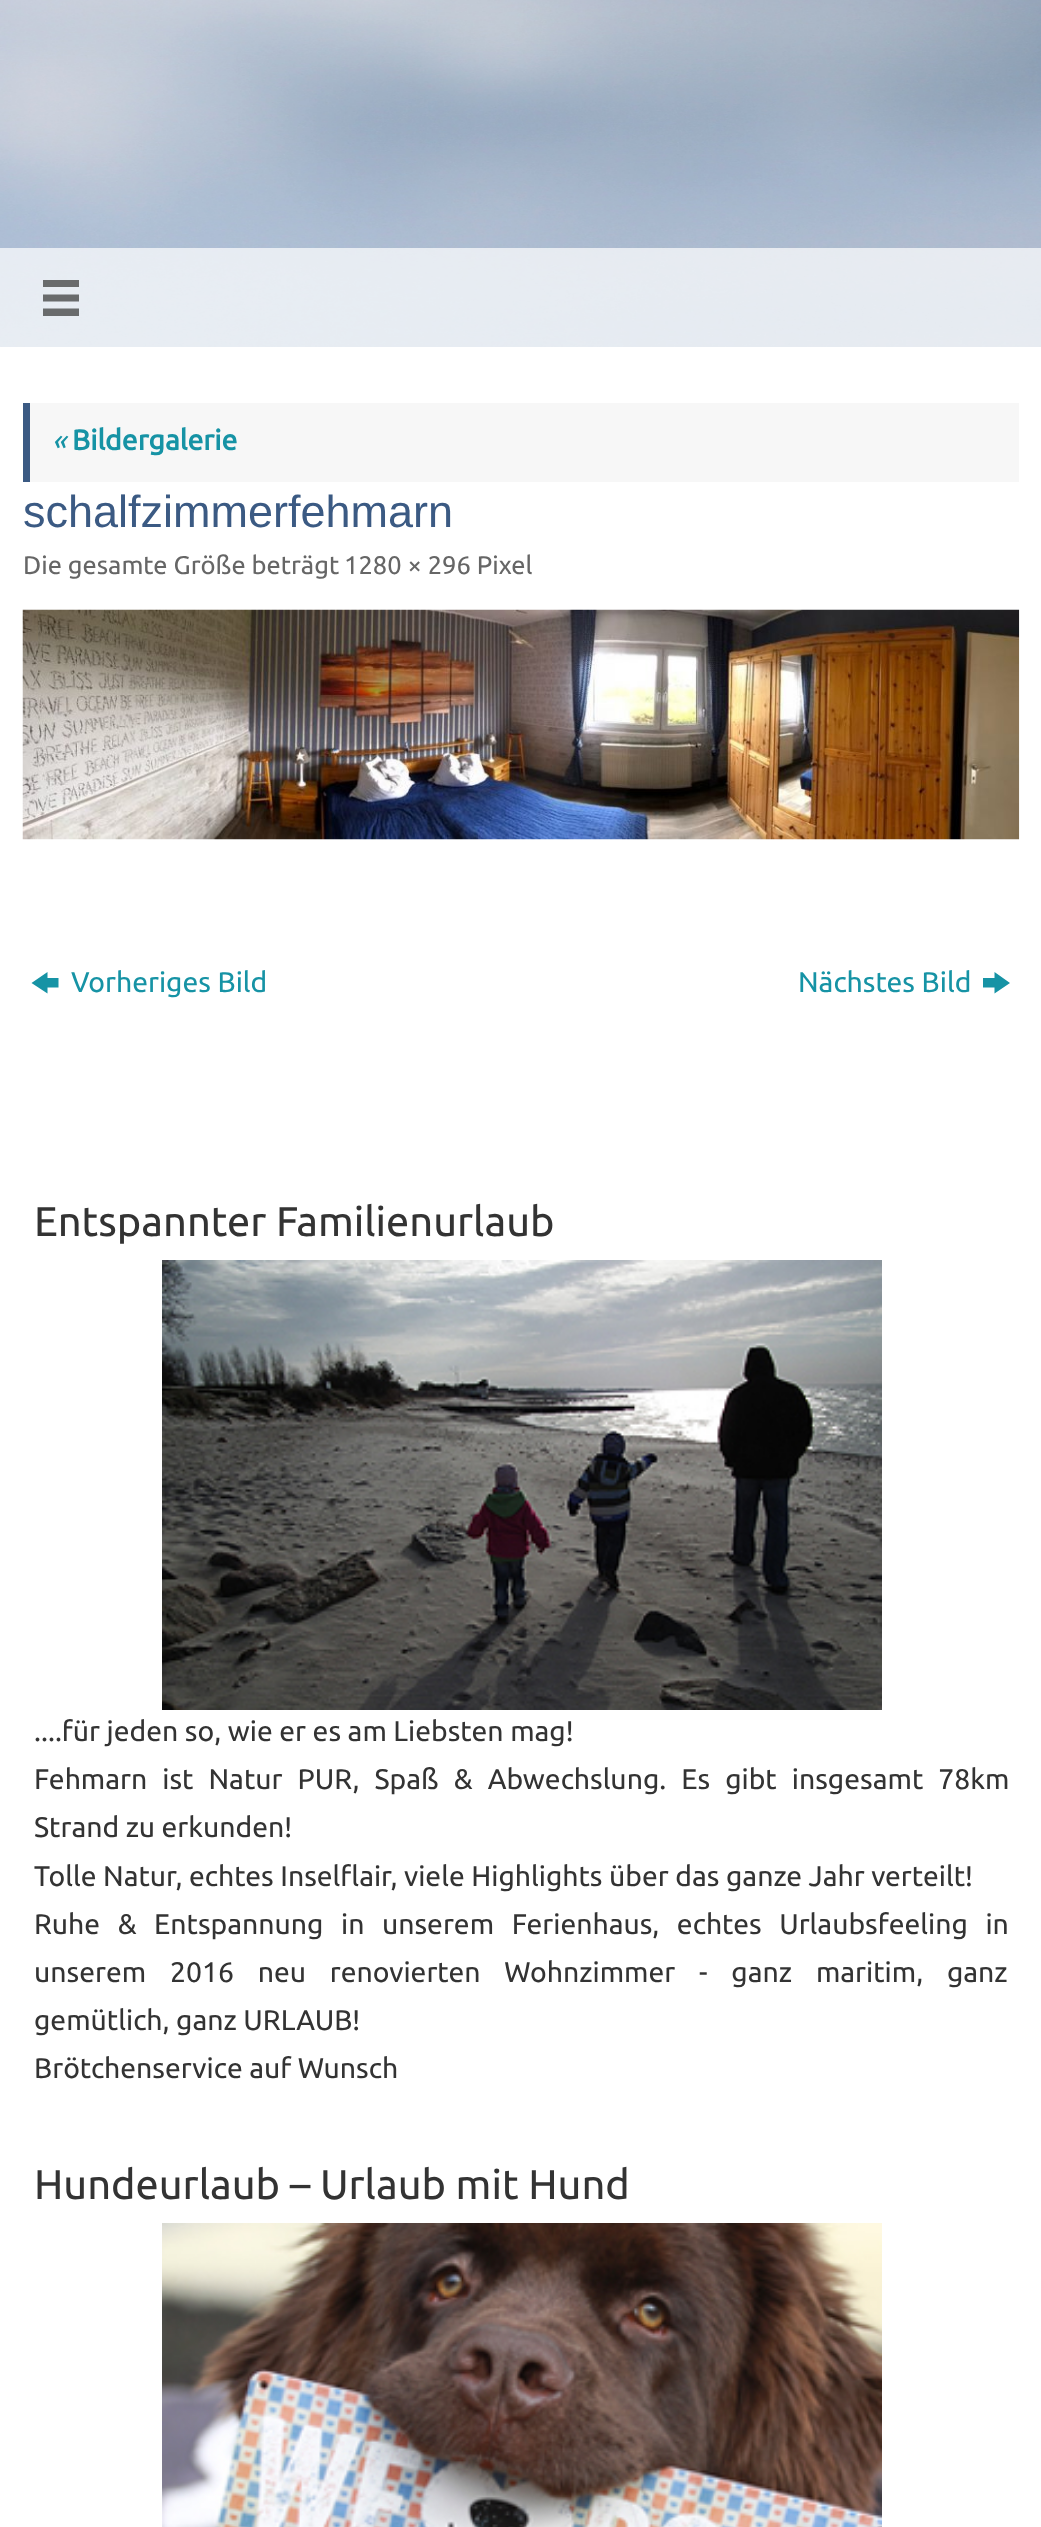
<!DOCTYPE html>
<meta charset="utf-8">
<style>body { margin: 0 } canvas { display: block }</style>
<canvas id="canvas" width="1041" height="2527"></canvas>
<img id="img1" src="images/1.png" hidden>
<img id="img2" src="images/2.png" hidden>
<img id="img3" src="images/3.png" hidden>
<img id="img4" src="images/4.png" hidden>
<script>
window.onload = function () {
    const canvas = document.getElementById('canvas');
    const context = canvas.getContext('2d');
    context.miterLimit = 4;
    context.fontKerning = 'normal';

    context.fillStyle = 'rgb(255, 255, 255)';
    context.fillRect(0, 0, 1041, 2527);
    context.drawImage(document.getElementById('img1'), 0, 0, 1041, 347);
    context.fillStyle = 'rgba(255, 255, 255, 0.7)';
    context.fillRect(0, 248, 1041, 99);
    context.fillStyle = 'rgb(105, 107, 108)';
    context.beginPath();
    context.moveTo(43, 280);
    context.lineTo(43, 287);
    context.lineTo(79, 287);
    context.lineTo(79, 280);
    context.closePath();
    context.moveTo(43, 294.5);
    context.lineTo(43, 301.5);
    context.lineTo(79, 301.5);
    context.lineTo(79, 294.5);
    context.closePath();
    context.moveTo(43, 308.5);
    context.lineTo(43, 316);
    context.lineTo(79, 316);
    context.lineTo(79, 308.5);
    context.closePath();
    context.fill();
    context.fillStyle = 'rgb(247, 247, 247)';
    context.fillRect(30, 403, 989, 79);
    context.fillStyle = 'rgb(59, 90, 131)';
    context.fillRect(23, 403, 7, 79);
    context.drawImage(document.getElementById('img2'), 22, 609, 998, 231);
    context.fillStyle = 'rgb(22, 147, 165)';
    context.beginPath();
    context.moveTo(31.5, 983);
    context.lineTo(47.5, 972);
    context.lineTo(47.5, 978);
    context.lineTo(58.5, 978);
    context.lineTo(58.5, 987.5);
    context.lineTo(47.5, 987.5);
    context.lineTo(47.5, 993.5);
    context.closePath();
    context.fill();
    context.beginPath();
    context.moveTo(983, 987.5);
    context.lineTo(983, 978);
    context.lineTo(994.5, 978);
    context.lineTo(994.5, 972);
    context.lineTo(1010, 983);
    context.lineTo(994.5, 993.5);
    context.lineTo(994.5, 987.5);
    context.closePath();
    context.fill();
    context.drawImage(document.getElementById('img3'), 162, 1260, 720, 450);
    context.drawImage(document.getElementById('img4'), 162, 2223, 720, 304);
    context.font = 'italic 28.35px Ubuntu';
    context.fillText('«', 52, 450);
    context.font = 'bold 28.35px Ubuntu';
    context.fillText('Bildergalerie', 72, 450);
    context.font = '45px Liberation Sans';
    context.fillStyle = 'rgb(59, 90, 131)';
    context.fillText('schalfzimmerfehmarn', 23, 527);
    context.font = '25.5px Ubuntu';
    context.fillStyle = 'rgb(102, 102, 102)';
    context.fillText('Die gesamte Größe beträgt', 23, 574);
    context.fillText('1280 × 296 Pixel', 344, 574);
    context.font = '28.35px Ubuntu';
    context.fillStyle = 'rgb(22, 147, 165)';
    context.fillText('Vorheriges Bild', 71, 992);
    context.fillText('Nächstes Bild', 798, 992);
    context.font = '41.6px Ubuntu';
    context.fillStyle = 'rgb(51, 51, 51)';
    context.fillText('Entspannter Familienurlaub', 34, 1236);
    context.font = '28.35px Ubuntu';
    context.fillText('....für jeden so, wie er es am Liebsten mag!', 34, 1741);
    context.wordSpacing = '8.5px';
    context.fillText('Fehmarn ist Natur PUR, Spaß & Abwechslung. Es gibt insgesamt 78km', 34, 1789);
    context.wordSpacing = '0px';
    context.fillText('Strand zu erkunden!', 34, 1837);
    context.fillText('Tolle Natur, echtes Inselflair, viele Highlights über das ganze Jahr verteilt!', 34, 1886);
    context.wordSpacing = '11px';
    context.fillText('Ruhe & Entspannung in unserem Ferienhaus, echtes Urlaubsfeeling in', 34, 1934);
    context.wordSpacing = '17.25px';
    context.fillText('unserem 2016 neu renovierten Wohnzimmer - ganz maritim, ganz', 34, 1982);
    context.wordSpacing = '0px';
    context.fillText('gemütlich, ganz URLAUB!', 34, 2030);
    context.fillText('Brötchenservice auf Wunsch', 34, 2078);
    context.font = '41.6px Ubuntu';
    context.fillText('Hundeurlaub – Urlaub mit Hund', 34, 2199);
};
</script>
